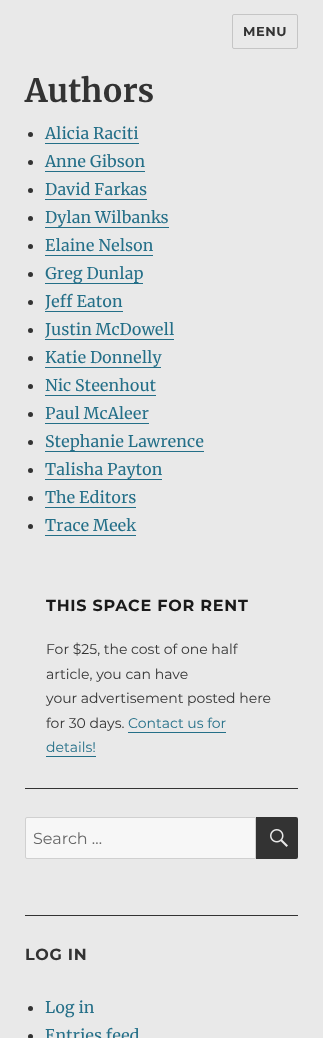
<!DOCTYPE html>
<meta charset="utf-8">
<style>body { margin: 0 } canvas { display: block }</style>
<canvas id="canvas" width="323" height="1038"></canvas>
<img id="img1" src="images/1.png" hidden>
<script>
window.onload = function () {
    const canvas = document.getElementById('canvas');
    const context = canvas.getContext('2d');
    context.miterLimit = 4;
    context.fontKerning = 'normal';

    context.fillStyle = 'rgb(233, 233, 233)';
    context.fillRect(0, 0, 323, 1038);
    context.beginPath();
    context.roundRect(232.5, 14.5, 65, 34, 1.5);
    context.strokeStyle = 'rgb(197, 197, 197)';
    context.stroke();
    context.fillStyle = 'rgb(51, 51, 51)';
    context.beginPath();
    context.arc(30.5, 134.5, 2.5, 0, 2 * Math.PI);
    context.fill();
    context.fillStyle = 'rgb(36, 111, 136)';
    context.fillRect(45, 143, 94, 1);
    context.fillStyle = 'rgb(51, 51, 51)';
    context.beginPath();
    context.arc(30.5, 162.5, 2.5, 0, 2 * Math.PI);
    context.fill();
    context.fillStyle = 'rgb(36, 111, 136)';
    context.fillRect(45, 171, 100, 1);
    context.fillStyle = 'rgb(51, 51, 51)';
    context.beginPath();
    context.arc(30.5, 190.5, 2.5, 0, 2 * Math.PI);
    context.fill();
    context.fillStyle = 'rgb(36, 111, 136)';
    context.fillRect(45, 199, 102, 1);
    context.fillStyle = 'rgb(51, 51, 51)';
    context.beginPath();
    context.arc(30.5, 218.5, 2.5, 0, 2 * Math.PI);
    context.fill();
    context.fillStyle = 'rgb(36, 111, 136)';
    context.fillRect(45, 227, 124, 1);
    context.fillStyle = 'rgb(51, 51, 51)';
    context.beginPath();
    context.arc(30.5, 246.5, 2.5, 0, 2 * Math.PI);
    context.fill();
    context.fillStyle = 'rgb(36, 111, 136)';
    context.fillRect(45, 255, 108, 1);
    context.fillStyle = 'rgb(51, 51, 51)';
    context.beginPath();
    context.arc(30.5, 274.5, 2.5, 0, 2 * Math.PI);
    context.fill();
    context.fillStyle = 'rgb(36, 111, 136)';
    context.fillRect(45, 283, 98, 1);
    context.fillStyle = 'rgb(51, 51, 51)';
    context.beginPath();
    context.arc(30.5, 302.5, 2.5, 0, 2 * Math.PI);
    context.fill();
    context.fillStyle = 'rgb(36, 111, 136)';
    context.fillRect(45, 311, 78, 1);
    context.fillStyle = 'rgb(51, 51, 51)';
    context.beginPath();
    context.arc(30.5, 330.5, 2.5, 0, 2 * Math.PI);
    context.fill();
    context.fillStyle = 'rgb(36, 111, 136)';
    context.fillRect(45, 339, 129, 1);
    context.fillStyle = 'rgb(51, 51, 51)';
    context.beginPath();
    context.arc(30.5, 358.5, 2.5, 0, 2 * Math.PI);
    context.fill();
    context.fillStyle = 'rgb(36, 111, 136)';
    context.fillRect(45, 367, 116, 1);
    context.fillStyle = 'rgb(51, 51, 51)';
    context.beginPath();
    context.arc(30.5, 386.5, 2.5, 0, 2 * Math.PI);
    context.fill();
    context.fillStyle = 'rgb(36, 111, 136)';
    context.fillRect(45, 395, 111, 1);
    context.fillStyle = 'rgb(51, 51, 51)';
    context.beginPath();
    context.arc(30.5, 414.5, 2.5, 0, 2 * Math.PI);
    context.fill();
    context.fillStyle = 'rgb(36, 111, 136)';
    context.fillRect(45, 423, 104, 1);
    context.fillStyle = 'rgb(51, 51, 51)';
    context.beginPath();
    context.arc(30.5, 442.5, 2.5, 0, 2 * Math.PI);
    context.fill();
    context.fillStyle = 'rgb(36, 111, 136)';
    context.fillRect(45, 451, 159, 1);
    context.fillStyle = 'rgb(51, 51, 51)';
    context.beginPath();
    context.arc(30.5, 470.5, 2.5, 0, 2 * Math.PI);
    context.fill();
    context.fillStyle = 'rgb(36, 111, 136)';
    context.fillRect(45, 479, 117, 1);
    context.fillStyle = 'rgb(51, 51, 51)';
    context.beginPath();
    context.arc(30.5, 498.5, 2.5, 0, 2 * Math.PI);
    context.fill();
    context.fillStyle = 'rgb(36, 111, 136)';
    context.fillRect(45, 507, 91, 1);
    context.fillStyle = 'rgb(51, 51, 51)';
    context.beginPath();
    context.arc(30.5, 526.5, 2.5, 0, 2 * Math.PI);
    context.fill();
    context.fillStyle = 'rgb(36, 111, 136)';
    context.fillRect(45, 535, 91, 1);
    context.fillRect(128, 732, 98, 1);
    context.fillRect(46, 756, 50, 1);
    context.fillStyle = 'rgb(51, 51, 51)';
    context.fillRect(25, 788, 273, 1);
    context.fillStyle = 'rgb(247, 247, 247)';
    context.beginPath();
    context.roundRect(25.5, 817.5, 230, 41, [1.5, 0, 0, 1.5]);
    context.fill();
    context.strokeStyle = 'rgb(208, 208, 208)';
    context.stroke();
    context.fillStyle = 'rgb(51, 51, 51)';
    context.beginPath();
    context.roundRect(256, 817, 42, 42, [0, 2, 2, 0]);
    context.fill();
    context.drawImage(document.getElementById('img1'), 270, 829, 18, 18);
    context.fillRect(25, 915, 273, 1);
    context.beginPath();
    context.arc(30.5, 1008.5, 2.5, 0, 2 * Math.PI);
    context.fill();
    context.beginPath();
    context.arc(30.5, 1036.5, 2.5, 0, 2 * Math.PI);
    context.fill();
    context.letterSpacing = '0.5px';
    context.font = '100 13px Montserrat';
    context.fillText('MENU', 243, 36);
    context.letterSpacing = '0px';
    context.font = 'bold 32px Merriweather';
    context.fillText('Authors', 25, 102);
    context.font = '16px Merriweather';
    context.fillStyle = 'rgb(36, 111, 136)';
    context.fillText('Alicia Raciti', 45, 139);
    context.fillText('Anne Gibson', 45, 167);
    context.fillText('David Farkas', 45, 195);
    context.fillText('Dylan Wilbanks', 45, 223);
    context.fillText('Elaine Nelson', 45, 251);
    context.fillText('Greg Dunlap', 45, 279);
    context.fillText('Jeff Eaton', 45, 307);
    context.fillText('Justin McDowell', 45, 335);
    context.fillText('Katie Donnelly', 45, 363);
    context.fillText('Nic Steenhout', 45, 391);
    context.fillText('Paul McAleer', 45, 419);
    context.fillText('Stephanie Lawrence', 45, 447);
    context.fillText('Talisha Payton', 45, 475);
    context.fillText('The Editors', 45, 503);
    context.fillText('Trace Meek', 45, 531);
    context.letterSpacing = '0.75px';
    context.font = '100 16px Montserrat';
    context.fillStyle = 'rgb(26, 26, 26)';
    context.fillText('THIS SPACE FOR RENT', 46, 611);
    context.letterSpacing = '0px';
    context.font = '100 14px "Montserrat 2"';
    context.fillStyle = 'rgb(51, 51, 51)';
    context.fillText('For $25, the cost of one half', 46, 654);
    context.fillText('article, you can have', 46, 679);
    context.fillText('your advertisement posted here', 46, 703);
    context.fillText('for 30 days.', 46, 728);
    context.fillStyle = 'rgb(36, 111, 136)';
    context.fillText('Contact us for', 128, 728);
    context.fillText('details!', 46, 752);
    context.font = '100 16px "Montserrat 2"';
    context.fillStyle = 'rgb(104, 104, 104)';
    context.fillText('Search …', 33, 844);
    context.letterSpacing = '0.75px';
    context.font = '100 16px Montserrat';
    context.fillStyle = 'rgb(51, 51, 51)';
    context.fillText('LOG IN', 25, 960);
    context.letterSpacing = '0px';
    context.font = '16px Merriweather';
    context.fillStyle = 'rgb(36, 111, 136)';
    context.fillText('Log in', 45, 1013);
    context.fillText('Entries feed', 45, 1041);
};
</script>
